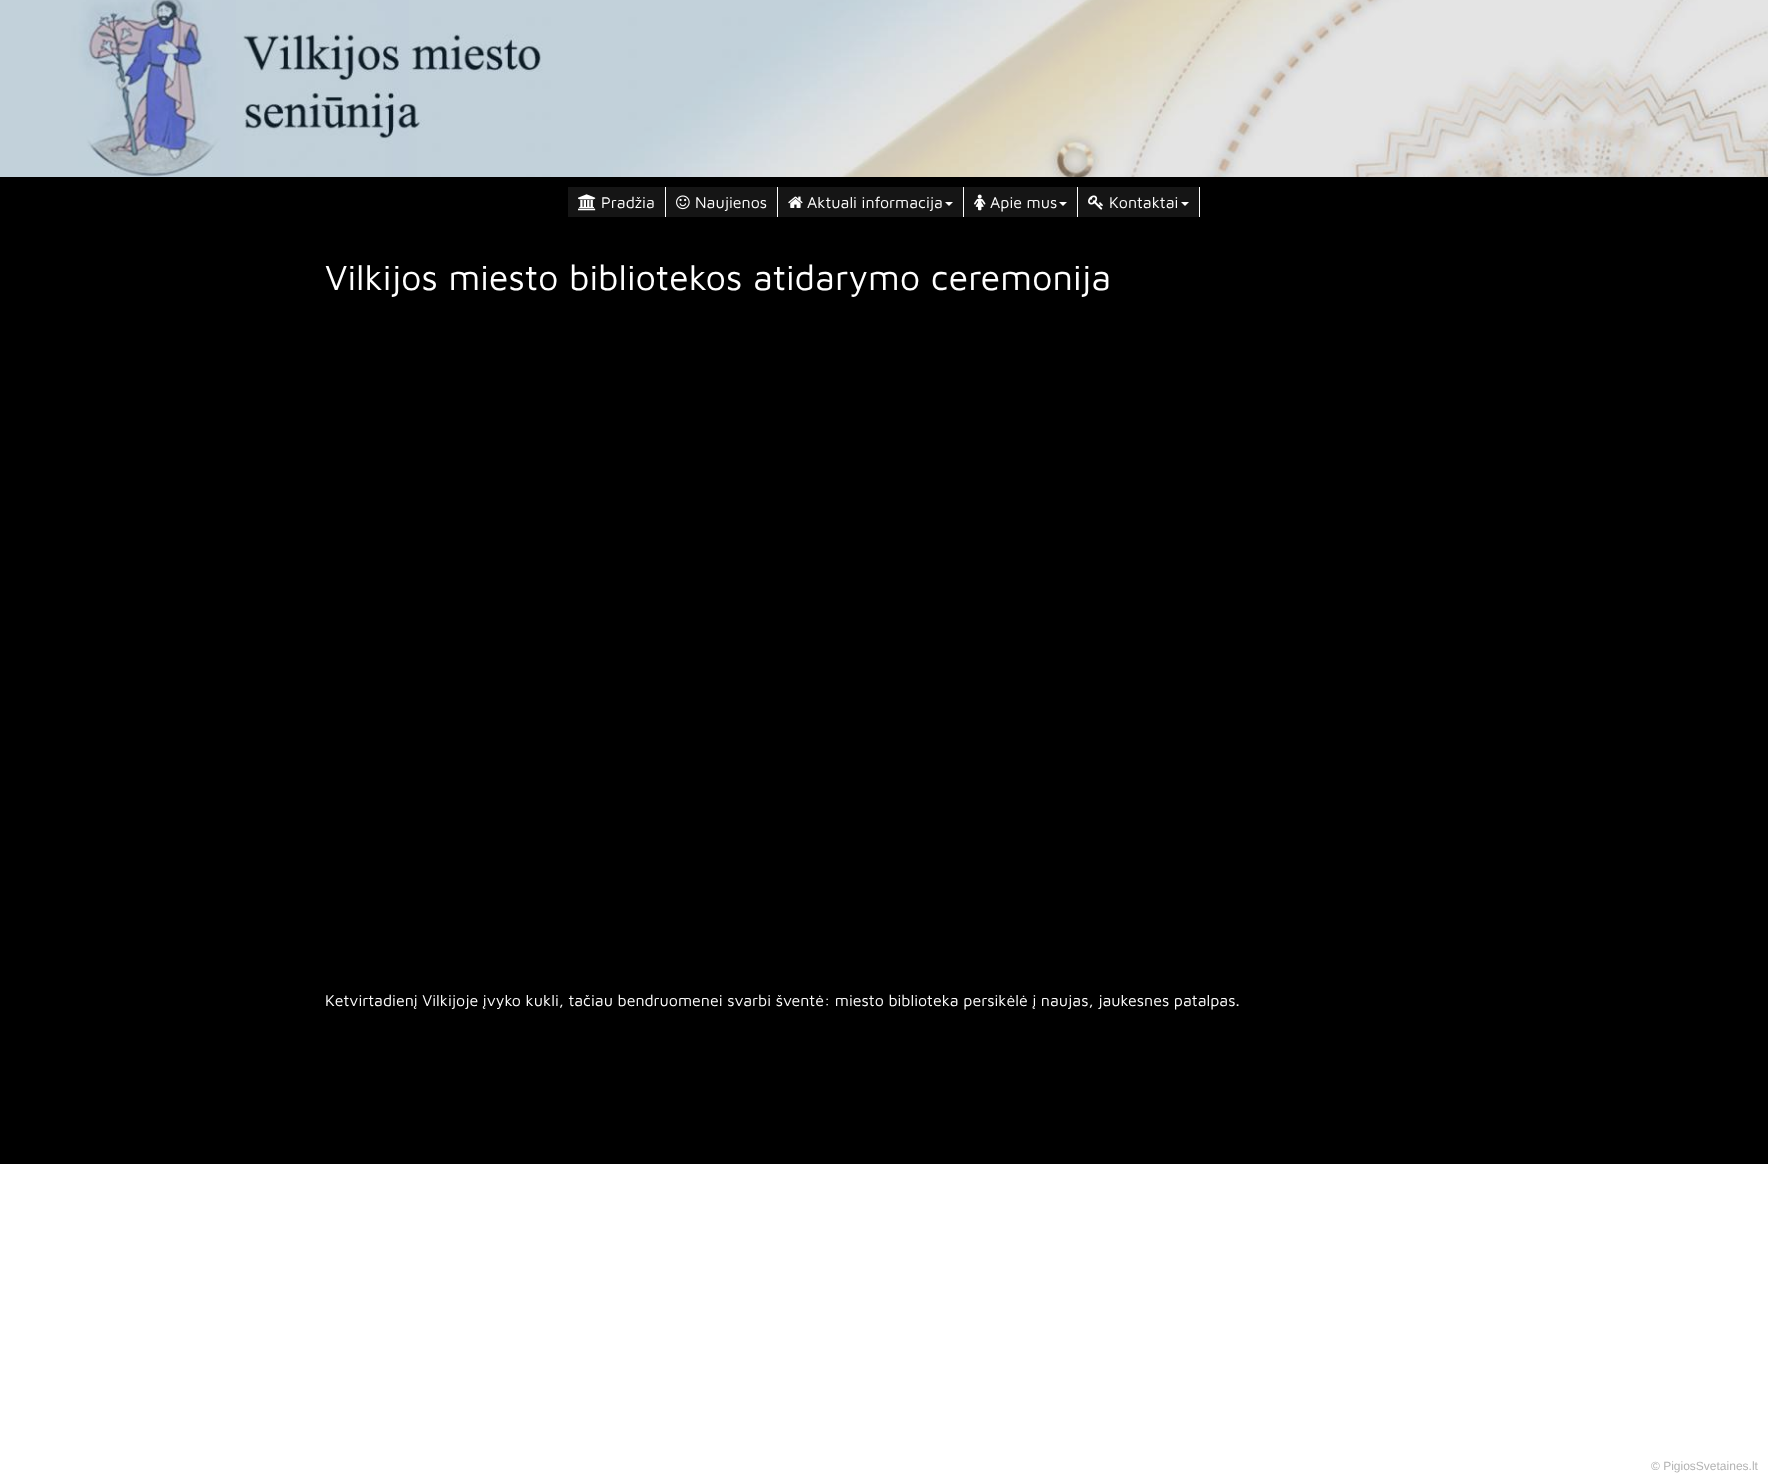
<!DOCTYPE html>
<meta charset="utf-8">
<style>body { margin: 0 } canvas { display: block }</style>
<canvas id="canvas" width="1768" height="1476"></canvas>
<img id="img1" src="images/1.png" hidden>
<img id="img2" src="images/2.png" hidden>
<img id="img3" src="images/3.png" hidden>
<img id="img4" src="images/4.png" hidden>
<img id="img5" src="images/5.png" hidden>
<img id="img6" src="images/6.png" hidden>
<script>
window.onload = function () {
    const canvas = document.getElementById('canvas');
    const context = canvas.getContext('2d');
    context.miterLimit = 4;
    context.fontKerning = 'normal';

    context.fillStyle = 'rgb(255, 255, 255)';
    context.fillRect(0, 0, 1768, 1476);
    context.drawImage(document.getElementById('img1'), 0, 0, 1768, 177);
    context.fillStyle = 'rgb(0, 0, 0)';
    context.fillRect(0, 177, 1768, 987);
    context.fillStyle = 'rgb(21, 21, 21)';
    context.fillRect(568, 187, 97, 30);
    context.fillStyle = 'rgb(255, 255, 255)';
    context.fillRect(665, 187, 1, 30);
    context.drawImage(document.getElementById('img2'), 578, 194, 18, 17);
    context.fillStyle = 'rgb(21, 21, 21)';
    context.fillRect(666, 187, 111, 30);
    context.fillStyle = 'rgb(255, 255, 255)';
    context.fillRect(777, 187, 1, 30);
    context.drawImage(document.getElementById('img3'), 676, 195, 14, 15);
    context.fillStyle = 'rgb(21, 21, 21)';
    context.fillRect(778, 187, 185, 30);
    context.fillStyle = 'rgb(255, 255, 255)';
    context.fillRect(963, 187, 1, 30);
    context.drawImage(document.getElementById('img4'), 788, 196, 15, 12);
    context.beginPath();
    context.moveTo(945, 202);
    context.lineTo(953, 202);
    context.lineTo(949, 206);
    context.closePath();
    context.fill();
    context.fillStyle = 'rgb(21, 21, 21)';
    context.fillRect(964, 187, 113, 30);
    context.fillStyle = 'rgb(255, 255, 255)';
    context.fillRect(1077, 187, 1, 30);
    context.drawImage(document.getElementById('img5'), 974, 194, 12, 17);
    context.beginPath();
    context.moveTo(1059, 202);
    context.lineTo(1067, 202);
    context.lineTo(1063, 206);
    context.closePath();
    context.fill();
    context.fillStyle = 'rgb(21, 21, 21)';
    context.fillRect(1078, 187, 121, 30);
    context.fillStyle = 'rgb(255, 255, 255)';
    context.fillRect(1199, 187, 1, 30);
    context.drawImage(document.getElementById('img6'), 1088, 195, 15, 15);
    context.beginPath();
    context.moveTo(1181, 202);
    context.lineTo(1189, 202);
    context.lineTo(1185, 206);
    context.closePath();
    context.fill();
    context.font = '16px Maven Pro';
    context.fillText('Pradžia', 601, 208);
    context.fillText('Naujienos', 695, 208);
    context.fillText('Aktuali informacija', 807, 208);
    context.fillText('Apie mus', 990, 208);
    context.fillText('Kontaktai', 1109, 208);
    context.font = '36px Maven Pro';
    context.fillText('Vilkijos miesto bibliotekos atidarymo ceremonija', 325, 290);
    context.font = '16px Maven Pro';
    context.fillText('Ketvirtadienį Vilkijoje įvyko kukli, tačiau bendruomenei svarbi šventė: miesto biblioteka persikėlė į naujas, jaukesnes patalpas.', 325, 1006);
    context.font = '12px Liberation Sans';
    context.fillStyle = 'rgb(179, 179, 179)';
    context.fillText('© PigiosSvetaines.lt', 1651, 1470);
};
</script>
